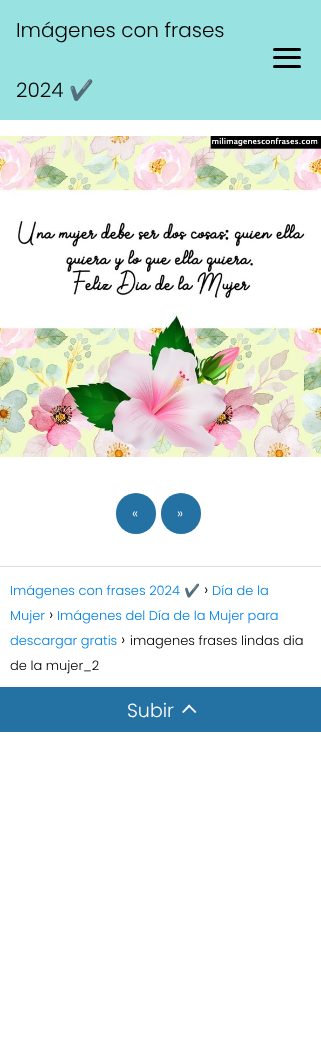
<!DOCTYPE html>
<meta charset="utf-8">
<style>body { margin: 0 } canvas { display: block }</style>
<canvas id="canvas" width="321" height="1038"></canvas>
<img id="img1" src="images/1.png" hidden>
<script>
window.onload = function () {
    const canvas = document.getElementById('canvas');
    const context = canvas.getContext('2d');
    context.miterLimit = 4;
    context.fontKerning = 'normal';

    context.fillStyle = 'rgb(255, 255, 255)';
    context.fillRect(0, 0, 321, 1038);
    context.fillStyle = 'rgb(152, 226, 226)';
    context.fillRect(0, 0, 321, 120);
    context.fillStyle = 'rgb(0, 0, 0)';
    context.beginPath();
    context.roundRect(273, 48, 28, 3, 1.5);
    context.fill();
    context.beginPath();
    context.roundRect(273, 56, 28, 3, 1.5);
    context.fill();
    context.beginPath();
    context.roundRect(273, 65, 28, 3, 1.5);
    context.fill();
    context.drawImage(document.getElementById('img1'), 0, 136, 321, 321);
    context.fillStyle = 'rgb(36, 113, 163)';
    context.beginPath();
    context.roundRect(116, 493, 40, 41, 20);
    context.fill();
    context.beginPath();
    context.roundRect(161, 493, 40, 41, 20);
    context.fill();
    context.fillStyle = 'rgb(221, 221, 221)';
    context.fillRect(0, 566, 321, 1);
    context.fillStyle = 'rgb(36, 113, 163)';
    context.fillRect(0, 687, 321, 45);
    context.fillStyle = 'rgb(255, 255, 255)';
    context.beginPath();
    context.moveTo(183.5, 713);
    context.lineTo(182, 712);
    context.lineTo(189, 704.5);
    context.lineTo(190.5, 706);
    context.closePath();
    context.fill();
    context.beginPath();
    context.moveTo(195, 713);
    context.lineTo(188, 706);
    context.lineTo(189, 704.5);
    context.lineTo(196.5, 712);
    context.closePath();
    context.fill();
    context.font = '300 20px Poppins';
    context.fillStyle = 'rgb(0, 0, 0)';
    context.fillText('Imágenes con frases', 16, 37);
    context.fillText('2024', 16, 97);
    context.font = '20px Noto Color Emoji';
    context.fillText('✔️', 69, 97);
    context.font = '300 14px Poppins';
    context.fillStyle = 'rgb(255, 255, 255)';
    context.fillText('«', 132, 518);
    context.fillText('»', 177, 518);
    context.font = '300 13px Poppins';
    context.fillStyle = 'rgb(1, 131, 228)';
    context.fillText('Imágenes con frases 2024', 10, 595);
    context.font = '13px Noto Color Emoji';
    context.fillText('✔️', 184, 595);
    context.font = '300 16px Poppins';
    context.fillStyle = 'rgb(0, 0, 0)';
    context.fillText('›', 204, 595);
    context.font = '300 13px Poppins';
    context.fillStyle = 'rgb(1, 131, 228)';
    context.fillText('Día de la', 212, 595);
    context.fillText('Mujer', 10, 620);
    context.font = '300 16px Poppins';
    context.fillStyle = 'rgb(0, 0, 0)';
    context.fillText('›', 49, 620);
    context.font = '300 13px Poppins';
    context.fillStyle = 'rgb(1, 131, 228)';
    context.fillText('Imágenes del Día de la Mujer para', 57, 620);
    context.fillText('descargar gratis', 10, 645);
    context.font = '300 16px Poppins';
    context.fillStyle = 'rgb(0, 0, 0)';
    context.fillText('›', 121, 645);
    context.font = '300 13px Poppins';
    context.fillText('imagenes frases lindas dia', 130, 645);
    context.fillText('de la mujer_2', 10, 670);
    context.font = '300 19px Poppins';
    context.fillStyle = 'rgb(255, 255, 255)';
    context.fillText('Subir', 127, 717);
};
</script>
